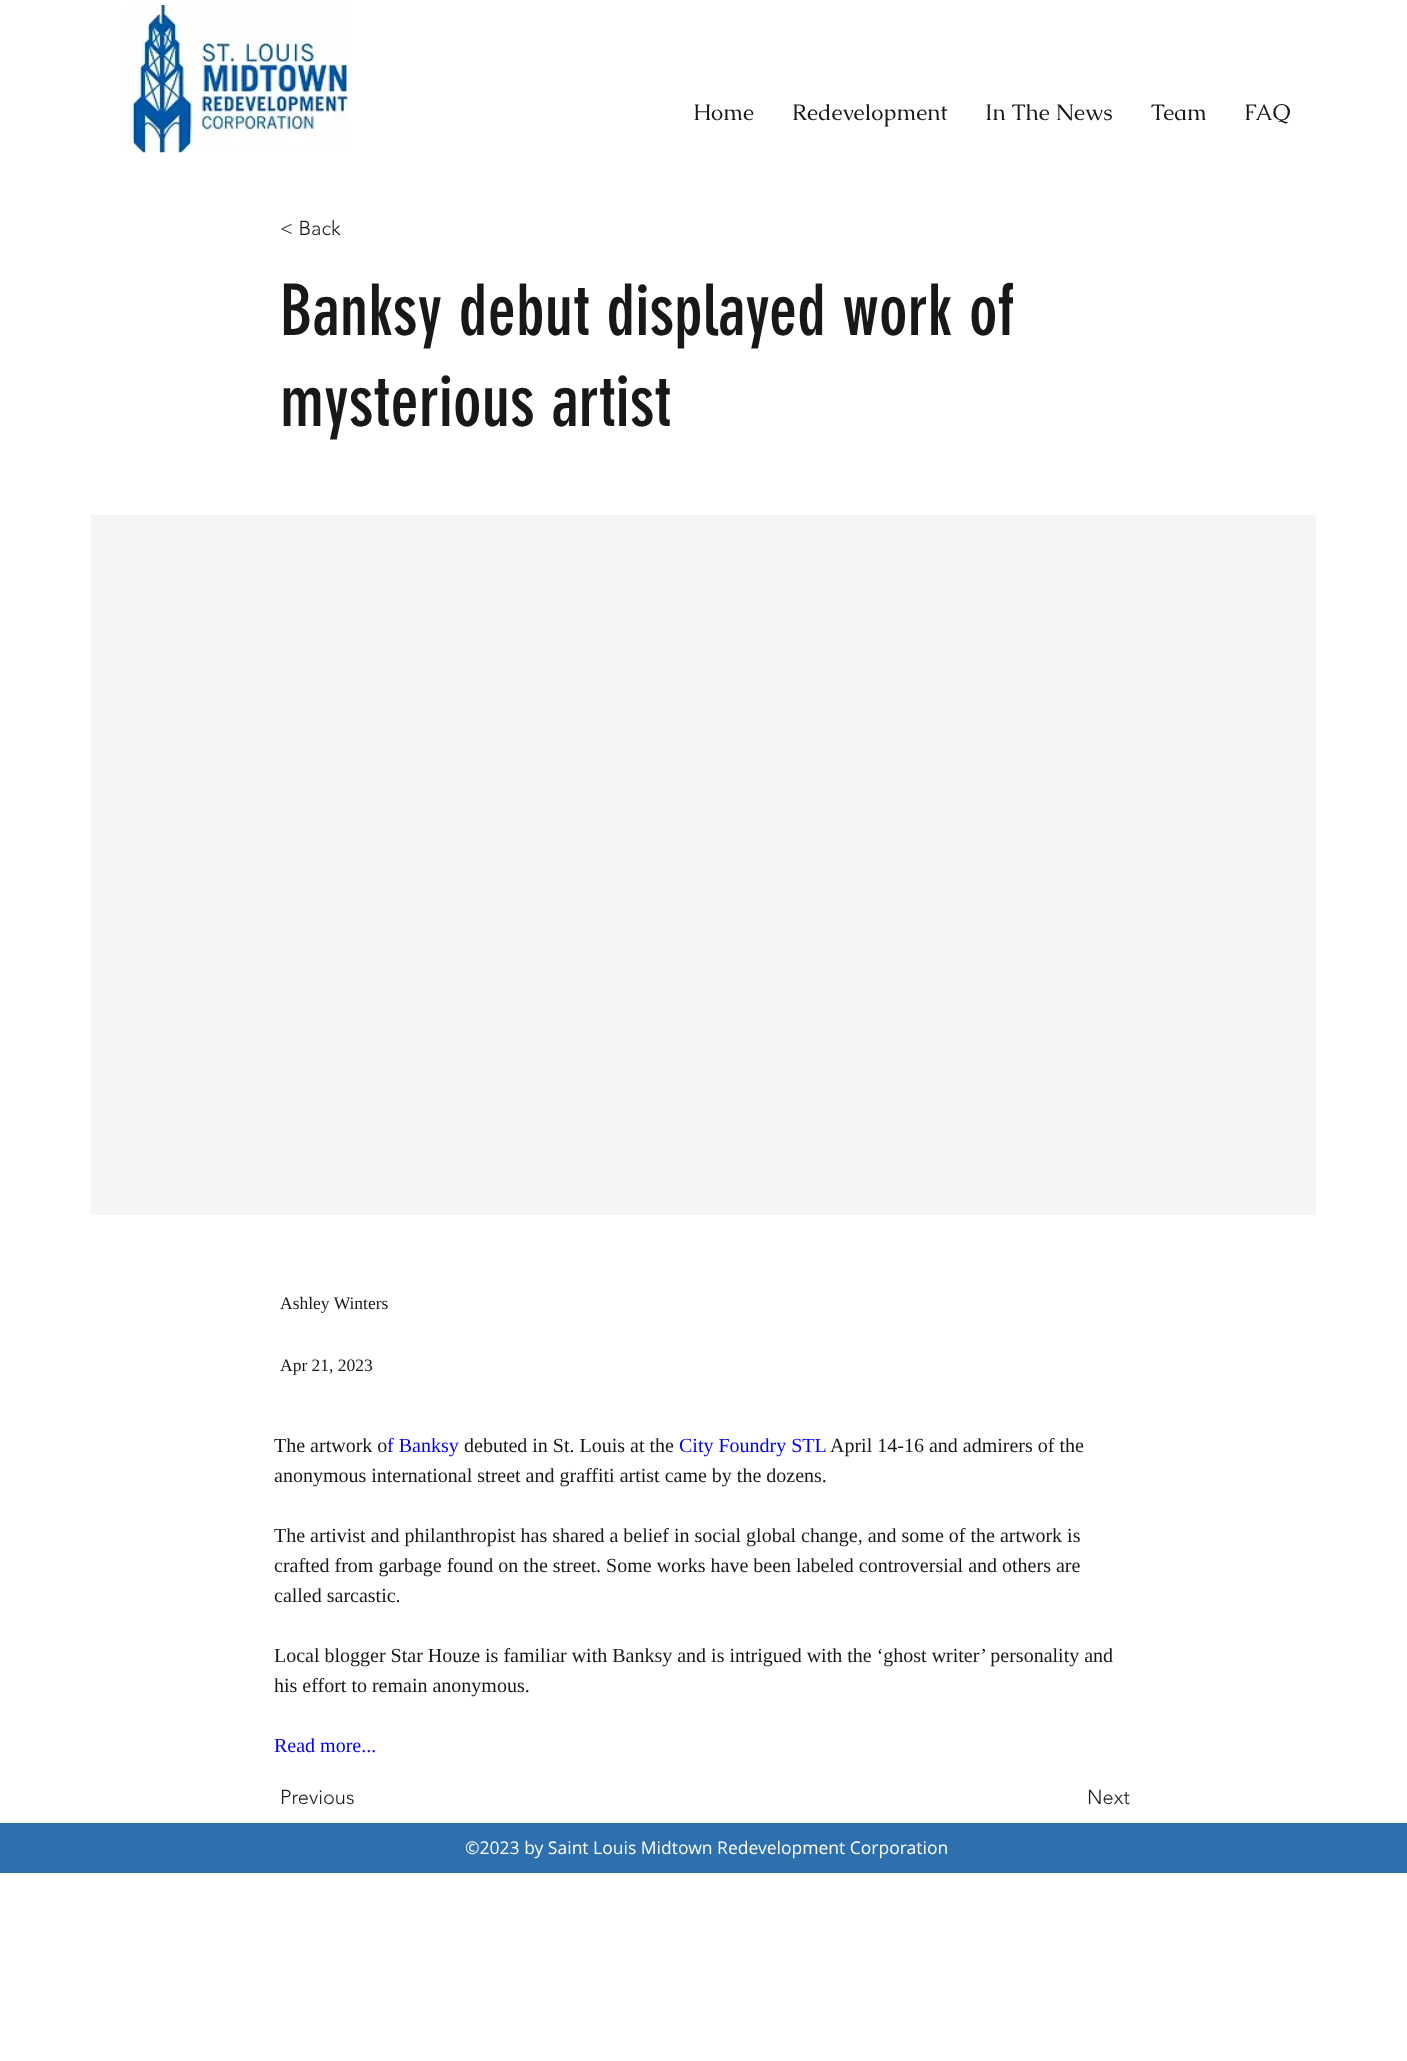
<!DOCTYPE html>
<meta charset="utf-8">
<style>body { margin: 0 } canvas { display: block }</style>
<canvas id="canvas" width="1407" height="2061"></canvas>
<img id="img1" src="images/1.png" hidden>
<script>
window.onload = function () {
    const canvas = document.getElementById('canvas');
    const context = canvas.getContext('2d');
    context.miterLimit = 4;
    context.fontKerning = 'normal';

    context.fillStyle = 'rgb(255, 255, 255)';
    context.fillRect(0, 0, 1407, 2061);
    context.drawImage(document.getElementById('img1'), 126, 5, 225, 148);
    context.fillStyle = 'rgb(245, 245, 245)';
    context.fillRect(91, 515, 1225, 700);
    context.fillStyle = 'rgb(45, 112, 173)';
    context.fillRect(0, 1823, 1407, 50);
    context.font = '22.5px Caudex';
    context.fillStyle = 'rgb(24, 24, 24)';
    context.fillText('Home', 693, 120);
    context.fillText('Redevelopment', 792, 120);
    context.fillText('In The News', 985, 120);
    context.fillText('Team', 1151, 120);
    context.fillText('FAQ', 1244, 120);
    context.font = '300 20px "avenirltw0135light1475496"';
    context.fillText('< Back', 280, 235);
    context.font = '70px "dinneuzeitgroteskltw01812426"';
    context.fillText('Banksy debut displayed work of', 280, 335);
    context.fillText('mysterious artist', 280, 426);
    context.font = '17.5px Liberation Serif';
    context.fillText('Ashley Winters', 280, 1309);
    context.fillText('Apr 21, 2023', 280, 1371);
    context.font = '20px Liberation Serif';
    context.fillText('The artwork o', 274, 1452);
    context.fillStyle = 'rgb(0, 0, 238)';
    context.fillText('f Banksy', 387, 1452);
    context.fillStyle = 'rgb(24, 24, 24)';
    context.fillText('debuted in St. Louis at the', 464, 1452);
    context.fillStyle = 'rgb(0, 0, 238)';
    context.fillText('City Foundry STL', 679, 1452);
    context.fillStyle = 'rgb(24, 24, 24)';
    context.fillText('April 14-16 and admirers of the', 830, 1452);
    context.fillText('anonymous international street and graffiti artist came by the dozens.', 274, 1482);
    context.fillText('The artivist and philanthropist has shared a belief in social global change, and some of the artwork is', 274, 1542);
    context.fillText('crafted from garbage found on the street. Some works have been labeled controversial and others are', 274, 1572);
    context.fillText('called sarcastic.', 274, 1602);
    context.fillText('Local blogger Star Houze is familiar with Banksy and is intrigued with the ‘ghost writer’ personality and', 274, 1662);
    context.fillText('his effort to remain anonymous.', 274, 1692);
    context.fillStyle = 'rgb(0, 0, 238)';
    context.fillText('Read more...', 274, 1752);
    context.font = '300 20px "avenirltw0135light1475496"';
    context.fillStyle = 'rgb(24, 24, 24)';
    context.fillText('Previous', 280, 1804);
    context.fillText('Next', 1087, 1804);
    context.font = '17.5px Open Sans';
    context.fillStyle = 'rgb(255, 255, 255)';
    context.fillText('©2023 by Saint Louis Midtown Redevelopment Corporation', 465, 1854);
};
</script>
